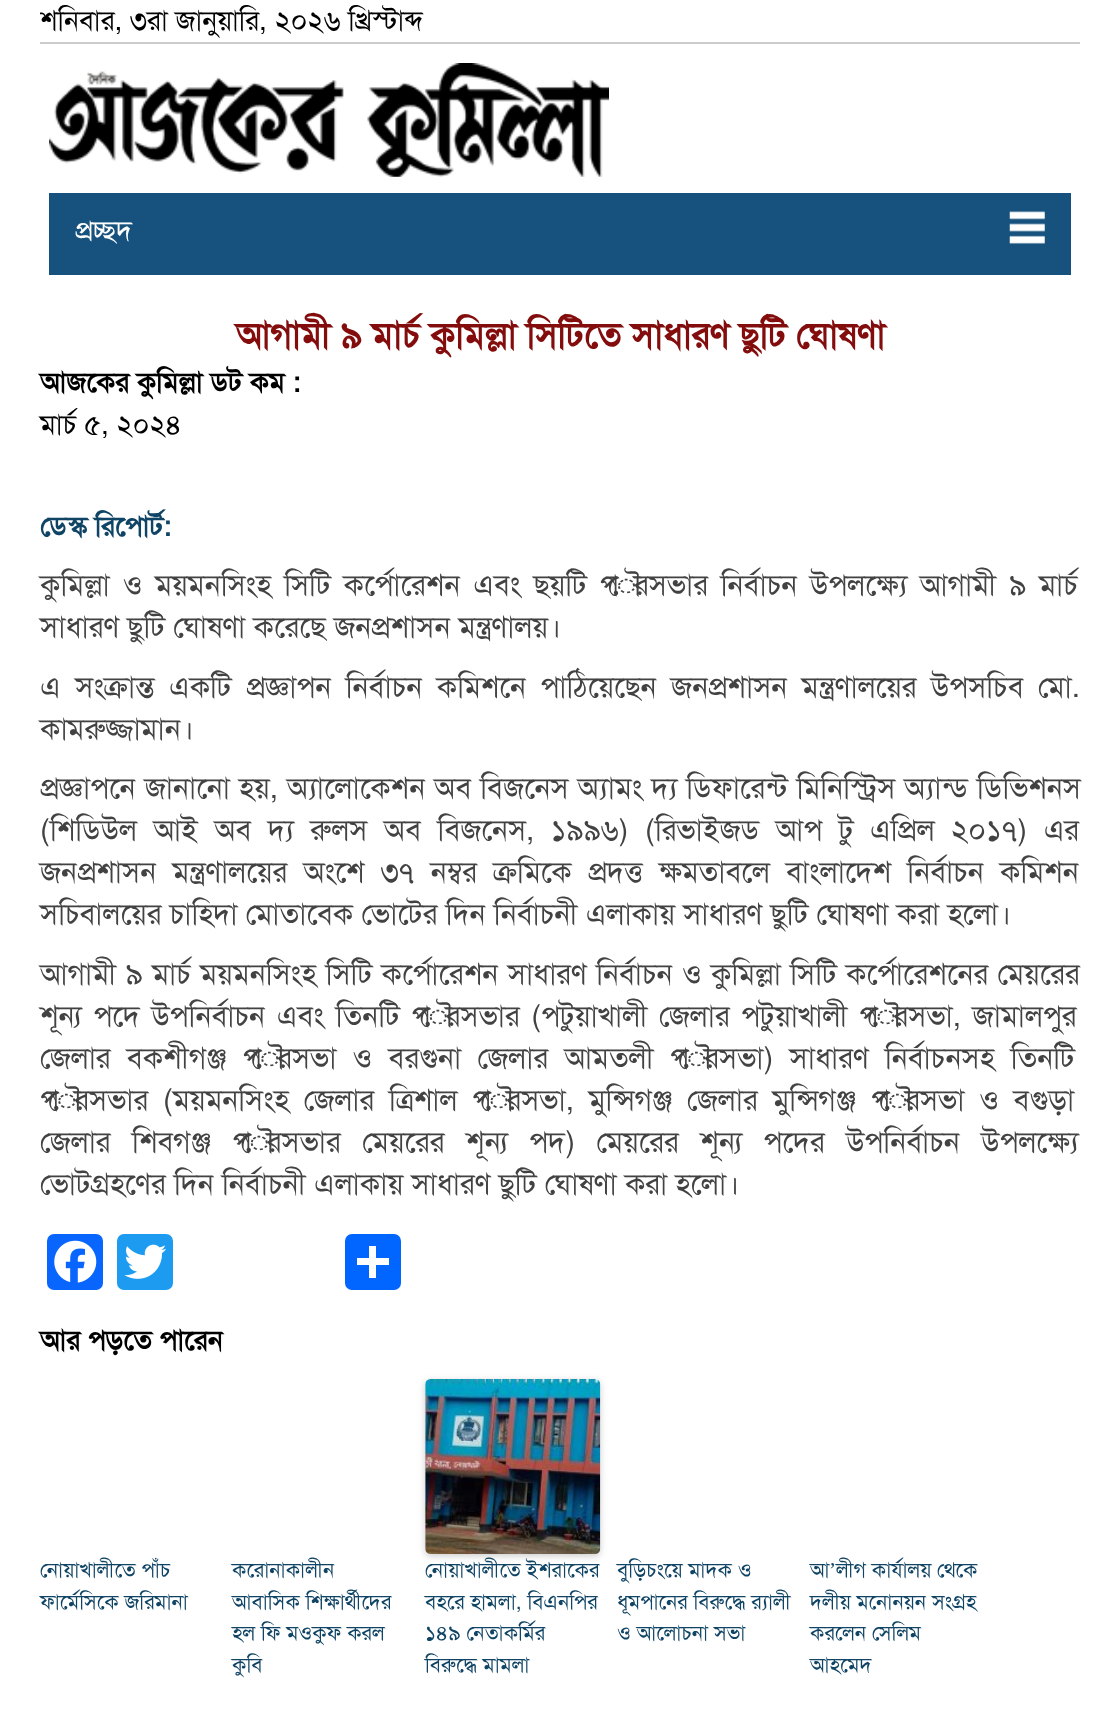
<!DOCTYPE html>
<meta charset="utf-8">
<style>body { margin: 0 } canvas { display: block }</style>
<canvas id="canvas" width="1119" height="1730"></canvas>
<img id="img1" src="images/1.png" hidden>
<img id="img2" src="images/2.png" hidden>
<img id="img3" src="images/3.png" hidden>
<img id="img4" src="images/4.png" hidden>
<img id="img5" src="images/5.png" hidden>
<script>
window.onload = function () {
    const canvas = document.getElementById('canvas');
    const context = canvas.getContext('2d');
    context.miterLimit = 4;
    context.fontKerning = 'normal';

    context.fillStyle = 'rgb(255, 255, 255)';
    context.fillRect(0, 0, 1119, 1730);
    context.fillStyle = 'rgb(204, 204, 204)';
    context.fillRect(40, 42, 1040, 2);
    context.drawImage(document.getElementById('img1'), 49, 63, 560, 114);
    context.fillStyle = 'rgb(23, 82, 126)';
    context.fillRect(49, 193, 1022, 82);
    context.drawImage(document.getElementById('img2'), 1009, 211, 36, 33);
    context.fillStyle = 'rgb(8, 102, 255)';
    context.beginPath();
    context.roundRect(47, 1234, 56, 56, 7);
    context.fill();
    context.drawImage(document.getElementById('img3'), 54, 1240, 43, 43);
    context.fillStyle = 'rgb(29, 155, 240)';
    context.beginPath();
    context.roundRect(117, 1234, 56, 56, 7);
    context.fill();
    context.drawImage(document.getElementById('img4'), 124, 1244, 43, 35);
    context.fillStyle = 'rgb(1, 102, 255)';
    context.beginPath();
    context.roundRect(345, 1234, 56, 56, 7);
    context.fill();
    context.fillStyle = 'rgb(255, 255, 255)';
    context.fillRect(369, 1246, 7, 32);
    context.fillRect(357, 1258, 32, 7);
    context.fillStyle = 'rgba(0, 0, 0, 0.2)';
    context.filter = 'blur(3.5px)';
    context.beginPath();
    context.roundRect(425, 1381, 175, 175, 5);
    context.fill();
    context.filter = 'none';
    context.drawImage(document.getElementById('img5'), 425, 1379, 176, 175);
    context.save();
    context.beginPath();
    context.rect(40, 0, 1040, 42);
    context.clip();
    context.font = '28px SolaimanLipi';
    context.fillStyle = 'rgb(0, 0, 0)';
    context.fillText('শনিবার,', 40, 30);
    context.restore();
    context.font = '28px SolaimanLipi';
    context.fillStyle = 'rgb(0, 0, 0)';
    context.fillText('৩রা জানুয়ারি, ২০২৬ খ্রিস্টাব্দ', 130, 30);
    context.fillStyle = 'rgb(255, 255, 255)';
    context.fillText('প্রচ্ছদ', 75, 240);
    context.font = 'bold 36.75px SolaimanLipi';
    context.fillStyle = 'rgb(131, 12, 12)';
    context.fillText('আগামী ৯ মার্চ কুমিল্লা সিটিতে সাধারণ ছুটি ঘোষণা', 236, 348);
    context.font = 'bold 28px SolaimanLipi';
    context.fillStyle = 'rgb(0, 0, 0)';
    context.fillText('আজকের কুমিল্লা ডট কম :', 40, 392);
    context.font = '28px SolaimanLipi';
    context.fillText('মার্চ ৫, ২০২৪', 40, 434);
    context.font = 'bold 28px SolaimanLipi';
    context.fillStyle = 'rgb(16, 68, 101)';
    context.fillText('ডেস্ক রিপোর্ট:', 40, 536);
    context.wordSpacing = '4.6px';
    context.font = '29.75px SolaimanLipi';
    context.fillStyle = 'rgb(66, 66, 66)';
    context.fillText('কুমিল্লা ও ময়মনসিংহ সিটি কর্পোরেশন এবং ছয়টি পৌরসভার নির্বাচন উপলক্ষ্যে আগামী ৯ মার্চ', 40, 595);
    context.wordSpacing = '0px';
    context.fillText('সাধারণ ছুটি ঘোষণা করেছে জনপ্রশাসন মন্ত্রণালয়।', 40, 637);
    context.wordSpacing = '6.25px';
    context.fillText('এ সংক্রান্ত একটি প্রজ্ঞাপন নির্বাচন কমিশনে পাঠিয়েছেন জনপ্রশাসন মন্ত্রণালয়ের উপসচিব মো.', 40, 697);
    context.wordSpacing = '0px';
    context.fillText('কামরুজ্জামান।', 40, 739);
    context.wordSpacing = '0.75px';
    context.fillText('প্রজ্ঞাপনে জানানো হয়, অ্যালোকেশন অব বিজনেস অ্যামং দ্য ডিফারেন্ট মিনিস্ট্রিস অ্যান্ড ডিভিশনস', 40, 798);
    context.wordSpacing = '8.25px';
    context.fillText('(শিডিউল আই অব দ্য রুলস অব বিজনেস, ১৯৯৬) (রিভাইজড আপ টু এপ্রিল ২০১৭) এর', 40, 840);
    context.wordSpacing = '8px';
    context.fillText('জনপ্রশাসন মন্ত্রণালয়ের অংশে ৩৭ নম্বর ক্রমিকে প্রদত্ত ক্ষমতাবলে বাংলাদেশ নির্বাচন কমিশন', 40, 882);
    context.wordSpacing = '0px';
    context.fillText('সচিবালয়ের চাহিদা মোতাবেক ভোটের দিন নির্বাচনী এলাকায় সাধারণ ছুটি ঘোষণা করা হলো।', 40, 924);
    context.wordSpacing = '1.1px';
    context.fillText('আগামী ৯ মার্চ ময়মনসিংহ সিটি কর্পোরেশন সাধারণ নির্বাচন ও কুমিল্লা সিটি কর্পোরেশনের মেয়রের', 40, 984);
    context.wordSpacing = '3.4px';
    context.fillText('শূন্য পদে উপনির্বাচন এবং তিনটি পৌরসভার (পটুয়াখালী জেলার পটুয়াখালী পৌরসভা, জামালপুর', 40, 1026);
    context.wordSpacing = '8px';
    context.fillText('জেলার বকশীগঞ্জ পৌরসভা ও বরগুনা জেলার আমতলী পৌরসভা) সাধারণ নির্বাচনসহ তিনটি', 40, 1068);
    context.wordSpacing = '6.5px';
    context.fillText('পৌরসভার (ময়মনসিংহ জেলার ত্রিশাল পৌরসভা, মুন্সিগঞ্জ জেলার মুন্সিগঞ্জ পৌরসভা ও বগুড়া', 40, 1110);
    context.wordSpacing = '13.25px';
    context.fillText('জেলার শিবগঞ্জ পৌরসভার মেয়রের শূন্য পদ) মেয়রের শূন্য পদের উপনির্বাচন উপলক্ষ্যে', 40, 1152);
    context.wordSpacing = '0px';
    context.fillText('ভোটগ্রহণের দিন নির্বাচনী এলাকায় সাধারণ ছুটি ঘোষণা করা হলো।', 40, 1194);
    context.font = 'bold 28px SolaimanLipi';
    context.fillStyle = 'rgb(0, 0, 0)';
    context.fillText('আর পড়তে পারেন', 40, 1350);
    context.font = '21px SolaimanLipi';
    context.fillStyle = 'rgb(16, 68, 101)';
    context.fillText('নোয়াখালীতে পাঁচ', 40, 1577);
    context.fillText('ফার্মেসিকে জরিমানা', 40, 1609);
    context.fillText('করোনাকালীন', 232, 1577);
    context.fillText('আবাসিক শিক্ষার্থীদের', 232, 1609);
    context.fillText('হল ফি মওকুফ করল', 232, 1640);
    context.fillText('কুবি', 232, 1672);
    context.fillText('নোয়াখালীতে ইশরাকের', 425, 1577);
    context.fillText('বহরে হামলা, বিএনপির', 425, 1609);
    context.fillText('১৪৯ নেতাকর্মির', 425, 1640);
    context.fillText('বিরুদ্ধে মামলা', 425, 1672);
    context.fillText('বুড়িচংয়ে মাদক ও', 617, 1577);
    context.fillText('ধূমপানের বিরুদ্ধে র‌্যালী', 617, 1609);
    context.fillText('ও আলোচনা সভা', 617, 1640);
    context.fillText('আ', 810, 1577);
    context.font = '21px Liberation Serif';
    context.fillText('’', 829, 1577);
    context.font = '21px SolaimanLipi';
    context.fillText('লীগ কার্যালয় থেকে', 836, 1577);
    context.fillText('দলীয় মনোনয়ন সংগ্রহ', 810, 1609);
    context.fillText('করলেন সেলিম', 810, 1640);
    context.fillText('আহমেদ', 810, 1672);
};
</script>
